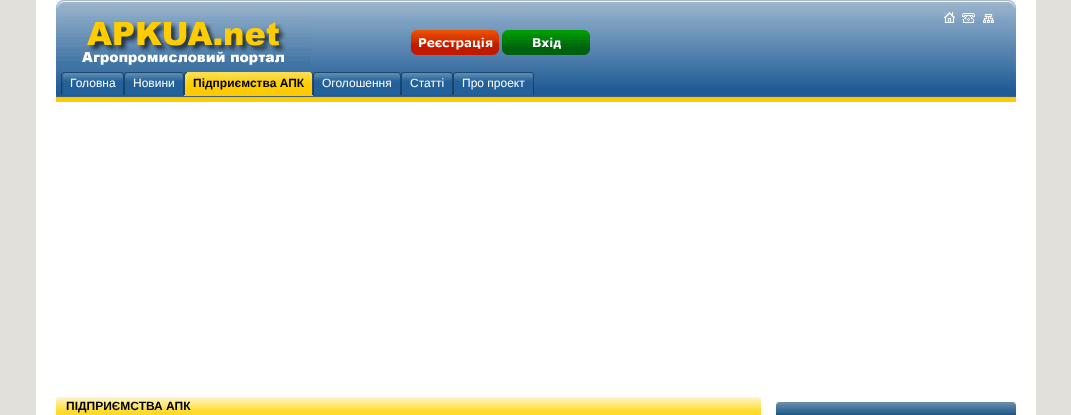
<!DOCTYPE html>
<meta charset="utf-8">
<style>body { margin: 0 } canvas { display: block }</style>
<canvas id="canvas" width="1071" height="415"></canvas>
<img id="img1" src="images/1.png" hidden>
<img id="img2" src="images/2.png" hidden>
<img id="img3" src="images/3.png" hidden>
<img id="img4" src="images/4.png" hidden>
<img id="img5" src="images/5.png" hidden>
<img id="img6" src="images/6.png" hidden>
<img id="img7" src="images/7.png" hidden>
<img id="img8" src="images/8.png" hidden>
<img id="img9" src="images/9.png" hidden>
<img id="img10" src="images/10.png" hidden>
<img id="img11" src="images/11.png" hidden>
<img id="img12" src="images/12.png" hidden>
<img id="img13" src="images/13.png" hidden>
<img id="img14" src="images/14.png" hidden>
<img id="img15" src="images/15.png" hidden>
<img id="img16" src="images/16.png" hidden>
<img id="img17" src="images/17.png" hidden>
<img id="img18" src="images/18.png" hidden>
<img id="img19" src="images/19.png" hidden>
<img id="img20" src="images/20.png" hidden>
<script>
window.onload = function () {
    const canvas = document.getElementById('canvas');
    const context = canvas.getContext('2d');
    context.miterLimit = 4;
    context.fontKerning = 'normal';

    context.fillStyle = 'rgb(225, 224, 219)';
    context.fillRect(0, 0, 1071, 415);
    context.fillStyle = 'rgb(255, 255, 255)';
    context.fillRect(36, 0, 1000, 415);
    context.drawImage(document.getElementById('img1'), 56, 0, 960, 102);
    context.drawImage(document.getElementById('img2'), 944, 12, 11, 11);
    context.drawImage(document.getElementById('img3'), 962, 13, 13, 10);
    context.drawImage(document.getElementById('img4'), 983, 14, 11, 9);
    context.drawImage(document.getElementById('img5'), 56, 22, 255, 43);
    context.drawImage(document.getElementById('img6'), 411, 30, 88, 25);
    context.drawImage(document.getElementById('img7'), 502, 30, 88, 25);
    context.drawImage(document.getElementById('img8'), 65, 72, 59, 23);
    context.drawImage(document.getElementById('img9'), 61, 72, 4, 23);
    context.drawImage(document.getElementById('img10'), 127, 72, 57, 23);
    context.drawImage(document.getElementById('img11'), 124, 72, 3, 23);
    context.drawImage(document.getElementById('img12'), 187, 72, 126, 23);
    context.fillStyle = 'rgb(254, 203, 0)';
    context.fillRect(184, 95, 129, 1);
    context.drawImage(document.getElementById('img13'), 184, 72, 3, 23);
    context.drawImage(document.getElementById('img14'), 316, 72, 85, 23);
    context.drawImage(document.getElementById('img11'), 313, 72, 3, 23);
    context.drawImage(document.getElementById('img15'), 404, 72, 49, 23);
    context.drawImage(document.getElementById('img11'), 401, 72, 3, 23);
    context.drawImage(document.getElementById('img16'), 456, 72, 78, 23);
    context.drawImage(document.getElementById('img11'), 453, 72, 3, 23);
    context.drawImage(document.getElementById('img17'), 56, 397, 705, 18);
    context.drawImage(document.getElementById('img18'), 756, 397, 5, 8);
    context.drawImage(document.getElementById('img19'), 56, 397, 6, 8);
    context.drawImage(document.getElementById('img20'), 776, 402, 240, 13);
    context.font = '12px Liberation Sans';
    context.fillStyle = 'rgb(255, 255, 255)';
    context.fillText('Головна', 70, 87);
    context.fillText('Новини', 133, 87);
    context.font = 'bold 12px Liberation Sans';
    context.fillStyle = 'rgb(0, 0, 0)';
    context.fillText('Підприємства АПК', 193, 87);
    context.font = '12px Liberation Sans';
    context.fillStyle = 'rgb(255, 255, 255)';
    context.fillText('Оголошення', 322, 87);
    context.fillText('Статті', 410, 87);
    context.fillText('Про проект', 462, 87);
    context.font = 'bold 12px Liberation Sans';
    context.fillStyle = 'rgb(0, 0, 0)';
    context.fillText('ПІДПРИЄМСТВА АПК', 66, 410);
};
</script>
